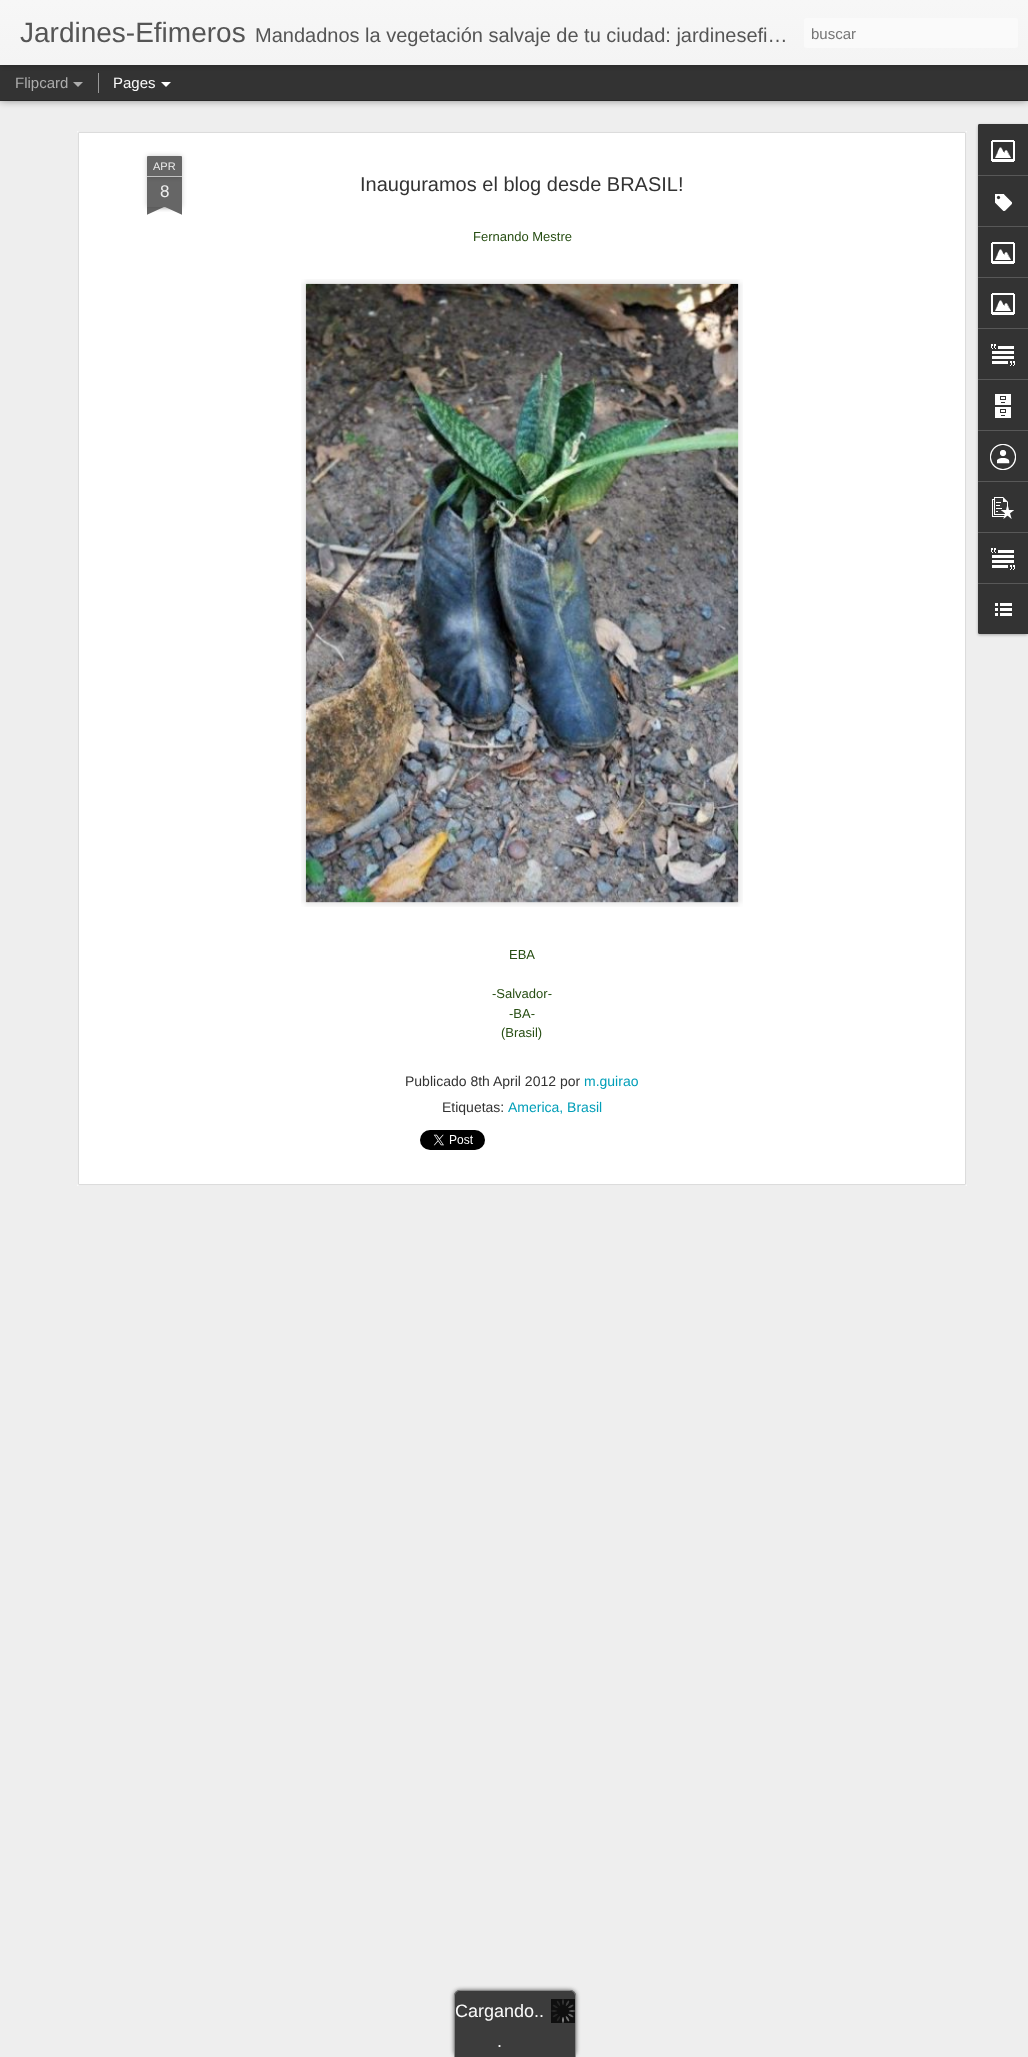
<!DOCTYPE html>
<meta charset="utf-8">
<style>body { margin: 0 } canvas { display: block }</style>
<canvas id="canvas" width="1028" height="2057"></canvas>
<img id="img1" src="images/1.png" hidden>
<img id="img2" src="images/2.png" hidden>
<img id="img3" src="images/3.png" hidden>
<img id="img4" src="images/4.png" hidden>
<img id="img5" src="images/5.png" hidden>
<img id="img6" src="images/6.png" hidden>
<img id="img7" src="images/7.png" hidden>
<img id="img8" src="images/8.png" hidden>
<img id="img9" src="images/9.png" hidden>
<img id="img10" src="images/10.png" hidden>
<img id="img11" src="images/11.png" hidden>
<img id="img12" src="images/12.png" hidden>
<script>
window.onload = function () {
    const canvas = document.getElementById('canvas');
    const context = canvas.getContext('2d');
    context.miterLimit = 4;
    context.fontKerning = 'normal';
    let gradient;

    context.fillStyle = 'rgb(51, 51, 51)';
    context.fillRect(0, 0, 1028, 2057);
    context.fillStyle = 'rgb(238, 238, 238)';
    context.fillRect(0, 101, 1028, 1956);
    context.fillStyle = 'rgba(0, 0, 0, 0.5)';
    context.filter = 'blur(4px)';
    context.beginPath();
    context.rect(0, 65, 1028, 35);
    context.fill();
    context.filter = 'none';
    context.fillStyle = 'rgb(51, 51, 51)';
    context.fillRect(0, 65, 1028, 35);
    context.fillStyle = 'rgb(153, 153, 153)';
    context.fillRect(98, 73, 1, 20);
    context.fillStyle = 'rgba(0, 0, 0, 0.3)';
    context.filter = 'blur(2.5px)';
    context.beginPath();
    context.rect(0, 0, 1028, 65);
    context.fill();
    context.filter = 'none';
    gradient = context.createLinearGradient(0, 0, 0, 65);
    gradient.addColorStop(0, 'rgb(247, 247, 247)');
    gradient.addColorStop(1, 'rgb(244, 244, 244)');
    context.fillStyle = gradient;
    context.fillRect(0, 0, 1028, 65);
    context.fillStyle = 'rgb(250, 250, 250)';
    context.beginPath();
    context.roundRect(804, 18, 214, 30, 3);
    context.fill();
    context.fillStyle = 'rgb(173, 173, 173)';
    context.beginPath();
    context.moveTo(73, 82);
    context.lineTo(83, 82);
    context.lineTo(78, 87);
    context.closePath();
    context.fill();
    context.fillStyle = 'rgb(255, 255, 255)';
    context.beginPath();
    context.moveTo(161, 82);
    context.lineTo(171, 82);
    context.lineTo(166, 87);
    context.closePath();
    context.fill();
    context.fillRect(77, 131, 890, 1055);
    context.drawImage(document.getElementById('img1'), 77, 131, 890, 1055);
    context.fillStyle = 'rgba(0, 0, 0, 0.2)';
    context.filter = 'blur(2.5px)';
    context.beginPath();
    context.rect(147, 177, 35, 30);
    context.fill();
    context.filter = 'none';
    context.fillStyle = 'rgb(102, 102, 102)';
    context.fillRect(147, 177, 35, 30);
    context.fillStyle = 'rgba(0, 0, 0, 0.2)';
    context.filter = 'blur(2.5px)';
    context.beginPath();
    context.roundRect(147, 156, 35, 21, 1);
    context.fill();
    context.filter = 'none';
    context.fillStyle = 'rgb(102, 102, 102)';
    context.beginPath();
    context.roundRect(147, 156, 35, 21, [1, 1, 0, 0]);
    context.fill();
    context.fillStyle = 'rgb(194, 194, 194)';
    context.fillRect(147, 176, 35, 1);
    context.save();
    context.beginPath();
    context.rect(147, 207, 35, 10);
    context.clip();
    context.fillStyle = 'rgba(0, 0, 0, 0.2)';
    context.filter = 'blur(2.5px)';
    context.beginPath();
    context.rect(138, 197, 50, 10);
    context.fill();
    context.filter = 'none';
    context.restore();
    context.save();
    context.beginPath();
    context.rect(147, 207, 35, 10);
    context.clip();
    context.fillStyle = 'rgb(102, 102, 102)';
    context.beginPath();
    context.moveTo(138, 208);
    context.lineTo(184, 187);
    context.lineTo(188, 196);
    context.lineTo(142, 217);
    context.closePath();
    context.fill();
    context.restore();
    context.save();
    context.beginPath();
    context.rect(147, 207, 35, 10);
    context.clip();
    context.fillStyle = 'rgba(0, 0, 0, 0.2)';
    context.filter = 'blur(2.5px)';
    context.beginPath();
    context.rect(141, 197, 50, 10);
    context.fill();
    context.filter = 'none';
    context.restore();
    context.save();
    context.beginPath();
    context.rect(147, 207, 35, 10);
    context.clip();
    context.fillStyle = 'rgb(102, 102, 102)';
    context.beginPath();
    context.moveTo(145, 187);
    context.lineTo(191, 208);
    context.lineTo(187, 217);
    context.lineTo(141, 196);
    context.closePath();
    context.fill();
    context.restore();
    context.drawImage(document.getElementById('img2'), 301, 279, 442, 628);
    context.drawImage(document.getElementById('img3'), 305, 283, 434, 620);
    context.drawImage(document.getElementById('img4'), 420, 1130, 65, 20);
    context.fillStyle = 'rgba(0, 0, 0, 0.3)';
    context.filter = 'blur(1.5px)';
    context.beginPath();
    context.roundRect(978, 125, 50, 510, 2);
    context.fill();
    context.filter = 'none';
    context.fillStyle = 'rgb(51, 51, 51)';
    context.beginPath();
    context.roundRect(978, 124, 50, 510, [2, 0, 0, 2]);
    context.fill();
    context.beginPath();
    context.roundRect(978, 124, 50, 51, [2, 0, 0, 0]);
    context.fill();
    context.drawImage(document.getElementById('img5'), 991, 140, 24, 22);
    context.fillStyle = 'rgb(88, 88, 88)';
    context.fillRect(978, 175, 50, 1);
    context.drawImage(document.getElementById('img6'), 995, 194, 17, 17);
    context.fillRect(978, 226, 50, 1);
    context.drawImage(document.getElementById('img5'), 991, 242, 24, 22);
    context.fillRect(978, 277, 50, 1);
    context.drawImage(document.getElementById('img5'), 991, 293, 24, 22);
    context.fillRect(978, 328, 50, 1);
    context.drawImage(document.getElementById('img7'), 991, 344, 24, 22);
    context.fillRect(978, 379, 50, 1);
    context.drawImage(document.getElementById('img8'), 995, 394, 16, 24);
    context.fillRect(978, 430, 50, 1);
    context.drawImage(document.getElementById('img9'), 990, 444, 26, 26);
    context.fillRect(978, 481, 50, 1);
    context.drawImage(document.getElementById('img10'), 992, 497, 22, 22);
    context.fillRect(978, 532, 50, 1);
    context.drawImage(document.getElementById('img7'), 991, 548, 24, 22);
    context.fillStyle = 'rgb(51, 51, 51)';
    context.beginPath();
    context.roundRect(978, 583, 50, 51, [0, 0, 0, 2]);
    context.fill();
    context.fillStyle = 'rgb(88, 88, 88)';
    context.fillRect(978, 583, 50, 1);
    context.drawImage(document.getElementById('img11'), 995, 603, 17, 13);
    context.fillStyle = 'rgb(98, 98, 98)';
    context.filter = 'blur(2px)';
    context.beginPath();
    context.roundRect(454, 1990, 122, 67, 6);
    context.fill();
    context.filter = 'none';
    context.fillStyle = 'rgb(60, 60, 60)';
    context.beginPath();
    context.roundRect(454, 1990, 122, 67, [6, 6, 0, 0]);
    context.fill();
    context.fillStyle = 'rgb(136, 136, 136)';
    context.beginPath();
    context.moveTo(460, 1990);
    context.lineTo(570, 1990);
    context.bezierCurveTo(573, 1990, 576, 1993, 576, 1996);
    context.lineTo(576, 2057);
    context.lineTo(454, 2057);
    context.lineTo(454, 1996);
    context.bezierCurveTo(454, 1993, 457, 1990, 460, 1990);
    context.closePath();
    context.moveTo(460, 1991);
    context.lineTo(570, 1991);
    context.bezierCurveTo(573, 1991, 575, 1993, 575, 1996);
    context.lineTo(575, 2057);
    context.lineTo(455, 2057);
    context.lineTo(455, 1996);
    context.bezierCurveTo(455, 1993, 457, 1991, 460, 1991);
    context.closePath();
    context.fill('evenodd');
    context.drawImage(document.getElementById('img12'), 551, 1999, 24, 24);
    context.font = '28px Liberation Sans';
    context.fillStyle = 'rgb(85, 85, 85)';
    context.fillText('Jardines-Efimeros', 20, 42);
    context.font = '20px Liberation Sans';
    context.fillText('Mandadnos la vegetación salvaje de tu ciudad: jardinesefi…', 255, 42);
    context.font = '15px Liberation Sans';
    context.fillStyle = 'rgb(117, 117, 117)';
    context.fillText('buscar', 811, 39);
    context.fillStyle = 'rgb(173, 173, 173)';
    context.fillText('Flipcard', 15, 88);
    context.fillStyle = 'rgb(251, 251, 251)';
    context.fillText('Pages', 113, 88);
    context.font = '11px Liberation Sans';
    context.fillStyle = 'rgb(238, 238, 238)';
    context.fillText('APR', 153, 170);
    context.font = '17px Liberation Sans';
    context.fillText('8', 160, 197);
    context.font = '20px Liberation Sans';
    context.fillStyle = 'rgb(51, 51, 51)';
    context.fillText('Inauguramos el blog desde BRASIL!', 360, 191);
    context.font = '13px Liberation Sans';
    context.fillStyle = 'rgb(39, 78, 19)';
    context.fillText('Fernando Mestre', 473, 241);
    context.fillText('EBA', 509, 959);
    context.fillText('-Salvador-', 492, 998);
    context.fillText('-BA-', 509, 1018);
    context.fillText('(Brasil)', 501, 1037);
    context.font = '14px Liberation Sans';
    context.fillStyle = 'rgb(51, 51, 51)';
    context.fillText('Publicado 8th April 2012 por', 405, 1086);
    context.fillStyle = 'rgb(0, 158, 184)';
    context.fillText('m.guirao', 584, 1086);
    context.fillStyle = 'rgb(51, 51, 51)';
    context.fillText('Etiquetas:', 442, 1112);
    context.fillStyle = 'rgb(0, 158, 184)';
    context.fillText('America, Brasil', 508, 1112);
    context.font = '18px Liberation Sans';
    context.fillStyle = 'rgb(251, 251, 251)';
    context.fillText('Cargando..', 455, 2017);
    context.fillText('.', 497, 2047);
};
</script>
